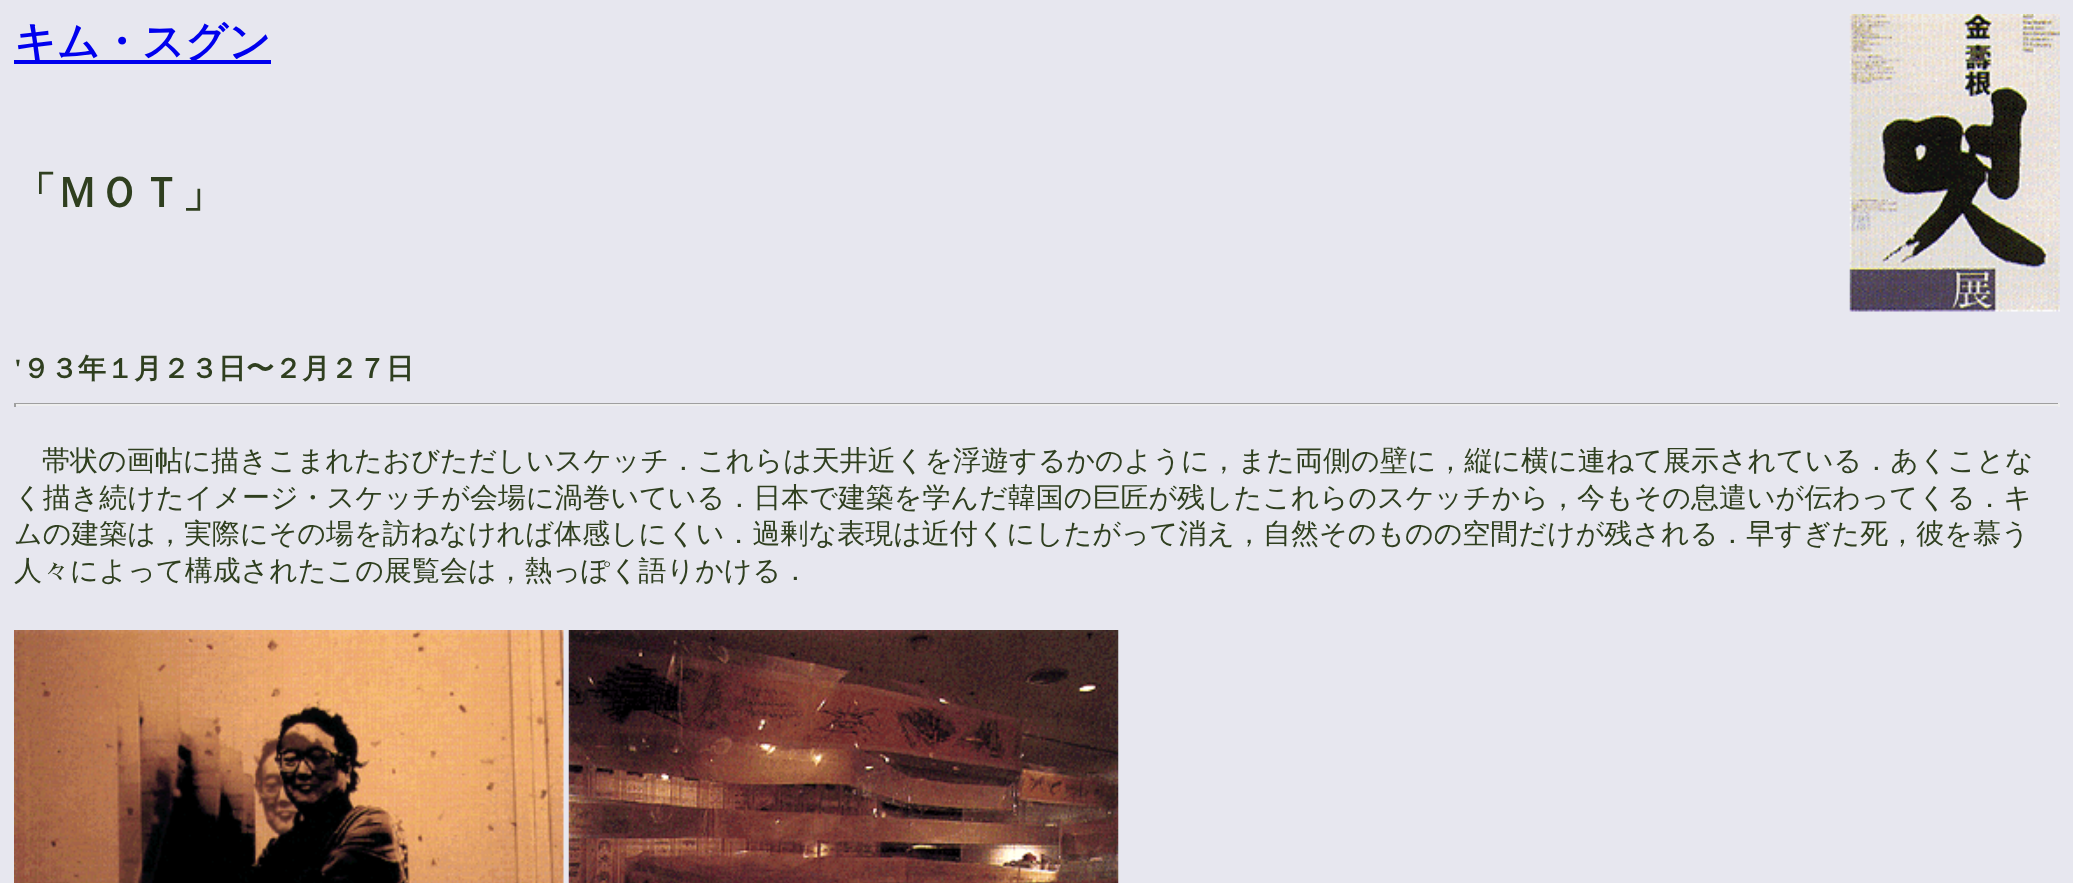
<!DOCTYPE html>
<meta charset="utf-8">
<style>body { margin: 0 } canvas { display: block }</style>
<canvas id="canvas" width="2073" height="883"></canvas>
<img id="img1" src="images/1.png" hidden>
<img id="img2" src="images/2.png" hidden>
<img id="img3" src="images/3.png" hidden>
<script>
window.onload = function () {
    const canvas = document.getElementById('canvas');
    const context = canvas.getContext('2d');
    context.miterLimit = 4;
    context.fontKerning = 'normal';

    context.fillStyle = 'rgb(231, 231, 239)';
    context.fillRect(0, 0, 2073, 883);
    context.fillStyle = 'rgb(0, 0, 238)';
    context.fillRect(14, 60, 257, 4);
    context.drawImage(document.getElementById('img1'), 1849, 14, 211, 298);
    context.fillStyle = 'rgb(159, 159, 159)';
    context.fillRect(14, 403, 2046, 1);
    context.fillStyle = 'rgb(238, 238, 238)';
    context.fillRect(2058, 403, 2, 4);
    context.fillRect(14, 404, 2046, 2);
    context.fillStyle = 'rgb(159, 159, 159)';
    context.fillRect(14, 403, 2, 4);
    context.drawImage(document.getElementById('img2'), 14, 630, 550, 253);
    context.drawImage(document.getElementById('img3'), 568, 630, 551, 253);
    context.font = 'bold 42px WenQuanYi Zen Hei';
    context.fillStyle = 'rgb(0, 0, 238)';
    context.fillText('キム・スグン', 14, 56);
    context.fillStyle = 'rgb(47, 63, 31)';
    context.fillText('「ＭＯＴ」', 14, 207);
    context.font = 'bold 28px Liberation Serif';
    context.fillText('\'', 14, 378);
    context.font = 'bold 28px WenQuanYi Zen Hei';
    context.fillText('９３年１月２３日〜２月２７日', 22, 378);
    context.font = '500 28px WenQuanYi Zen Hei';
    context.fillText('帯状の画帖に描きこまれたおびただしいスケッチ．これらは天井近くを浮遊するかのように，また両側の壁に，縦に横に連ねて展示されている．あくことな', 42, 470);
    context.fillText('く描き続けたイメージ・スケッチが会場に渦巻いている．日本で建築を学んだ韓国の巨匠が残したこれらのスケッチから，今もその息遣いが伝わってくる．キ', 14, 507);
    context.fillText('ムの建築は，実際にその場を訪ねなければ体感しにくい．過剰な表現は近付くにしたがって消え，自然そのものの空間だけが残される．早すぎた死，彼を慕う', 14, 543);
    context.fillText('人々によって構成されたこの展覧会は，熱っぽく語りかける．', 14, 580);
};
</script>
